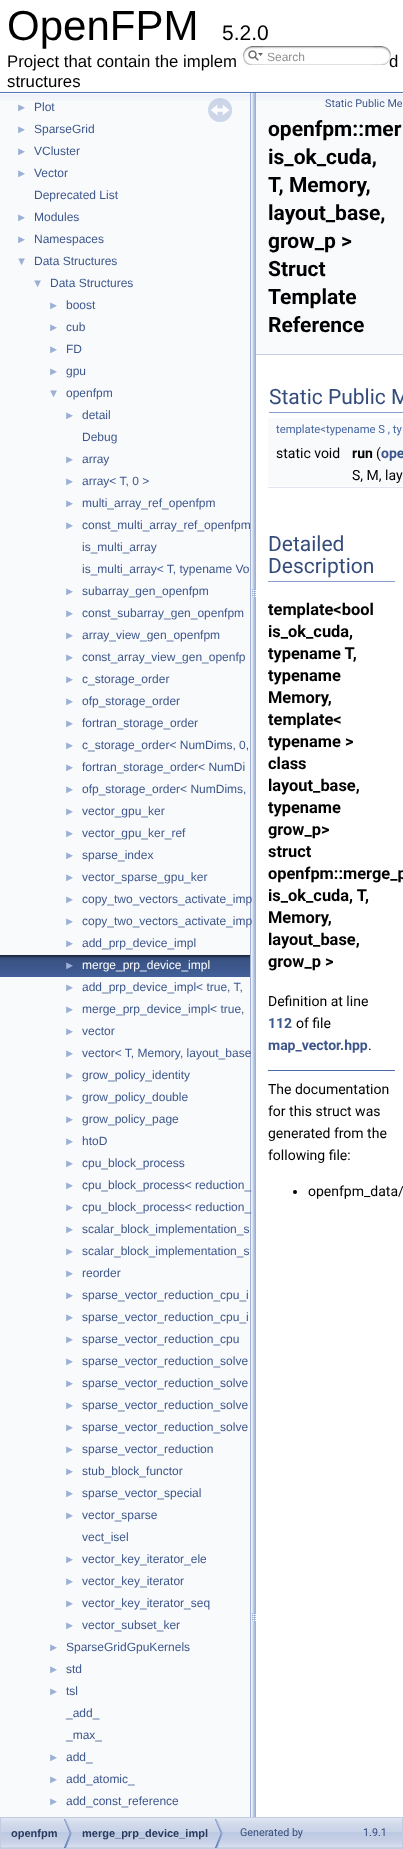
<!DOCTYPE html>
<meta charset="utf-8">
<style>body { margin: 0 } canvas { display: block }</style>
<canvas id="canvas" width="403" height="1849"></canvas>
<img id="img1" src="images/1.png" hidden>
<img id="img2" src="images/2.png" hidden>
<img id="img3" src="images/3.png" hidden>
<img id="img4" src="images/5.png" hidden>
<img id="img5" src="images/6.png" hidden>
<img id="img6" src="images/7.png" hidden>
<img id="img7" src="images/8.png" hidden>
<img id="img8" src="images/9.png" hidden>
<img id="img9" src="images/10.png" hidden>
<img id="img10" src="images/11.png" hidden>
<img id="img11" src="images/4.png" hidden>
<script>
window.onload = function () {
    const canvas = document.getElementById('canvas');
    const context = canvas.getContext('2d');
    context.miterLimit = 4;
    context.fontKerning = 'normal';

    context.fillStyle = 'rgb(255, 255, 255)';
    context.fillRect(0, 0, 403, 1849);
    context.fillStyle = 'rgb(83, 115, 180)';
    context.fillRect(0, 92, 403, 1);
    context.drawImage(document.getElementById('img1'), 243, 46, 20, 19);
    context.drawImage(document.getElementById('img2'), 248, 50, 15, 11);
    context.drawImage(document.getElementById('img3'), 263, 46, 110, 19);
    context.fillStyle = 'rgb(249, 250, 252)';
    context.fillRect(0, 101, 250, 1716);
    context.drawImage(document.getElementById('img4'), 0, 93, 250, 8);
    context.drawImage(document.getElementById('img5'), 208, 98, 24, 24);
    context.drawImage(document.getElementById('img6'), 0, 955, 250, 22);
    context.drawImage(document.getElementById('img7'), 250, 93, 6, 1724);
    context.fillRect(256, 101, 147, 253);
    context.drawImage(document.getElementById('img8'), 256, 93, 147, 8);
    context.fillStyle = 'rgb(196, 207, 229)';
    context.fillRect(256, 354, 147, 1);
    context.fillStyle = 'rgb(135, 158, 203)';
    context.fillRect(269, 412, 134, 1);
    context.fillStyle = 'rgb(249, 250, 252)';
    context.fillRect(268, 418, 135, 23);
    context.fillRect(268, 441, 135, 45);
    context.fillStyle = 'rgb(222, 228, 240)';
    context.fillRect(268, 487, 135, 1);
    context.fillStyle = 'rgb(135, 158, 203)';
    context.fillRect(268, 581, 127, 1);
    context.fillStyle = 'rgb(74, 106, 170)';
    context.fillRect(268, 1070, 127, 1);
    context.fillStyle = 'rgb(0, 0, 0)';
    context.beginPath();
    context.arc(295, 1192, 2, 0, 2 * Math.PI);
    context.fill();
    context.drawImage(document.getElementById('img9'), 1, 1818, 401, 30);
    context.strokeStyle = 'rgb(194, 205, 228)';
    context.strokeRect(0.5, 1817.5, 402, 31);
    context.drawImage(document.getElementById('img10'), 64, 1819, 8, 29);
    context.drawImage(document.getElementById('img10'), 215, 1819, 8, 29);
    context.font = '42px Liberation Sans';
    context.fillText('OpenFPM', 7, 40);
    context.font = '21px Liberation Sans';
    context.fillText('5.2.0', 222, 40);
    context.font = '16.75px Liberation Sans';
    context.fillText('Project that contain the implem', 7, 67);
    context.fillText('d', 389, 67);
    context.fillText('structures', 7, 87);
    context.font = '12px Liberation Sans';
    context.fillStyle = 'rgb(144, 144, 144)';
    context.fillText('Search', 267, 61);
    context.drawImage(document.getElementById('img11'), 373, 46, 18, 19);
    context.font = '11.25px Liberation Sans';
    context.fillStyle = 'rgb(156, 175, 212)';
    context.fillText('►', 16, 111);
    context.font = '12px Liberation Sans';
    context.fillStyle = 'rgb(61, 87, 140)';
    context.fillText('Plot', 34, 111);
    context.font = '11.25px Liberation Sans';
    context.fillStyle = 'rgb(156, 175, 212)';
    context.fillText('►', 16, 133);
    context.font = '12px Liberation Sans';
    context.fillStyle = 'rgb(61, 87, 140)';
    context.fillText('SparseGrid', 34, 133);
    context.font = '11.25px Liberation Sans';
    context.fillStyle = 'rgb(156, 175, 212)';
    context.fillText('►', 16, 155);
    context.font = '12px Liberation Sans';
    context.fillStyle = 'rgb(61, 87, 140)';
    context.fillText('VCluster', 34, 155);
    context.font = '11.25px Liberation Sans';
    context.fillStyle = 'rgb(156, 175, 212)';
    context.fillText('►', 16, 177);
    context.font = '12px Liberation Sans';
    context.fillStyle = 'rgb(61, 87, 140)';
    context.fillText('Vector', 34, 177);
    context.fillText('Deprecated List', 34, 199);
    context.font = '11.25px Liberation Sans';
    context.fillStyle = 'rgb(156, 175, 212)';
    context.fillText('►', 16, 221);
    context.font = '12px Liberation Sans';
    context.fillStyle = 'rgb(61, 87, 140)';
    context.fillText('Modules', 34, 221);
    context.font = '11.25px Liberation Sans';
    context.fillStyle = 'rgb(156, 175, 212)';
    context.fillText('►', 16, 243);
    context.font = '12px Liberation Sans';
    context.fillStyle = 'rgb(61, 87, 140)';
    context.fillText('Namespaces', 34, 243);
    context.font = '11.25px Liberation Sans';
    context.fillStyle = 'rgb(156, 175, 212)';
    context.fillText('▼', 16, 265);
    context.font = '12px Liberation Sans';
    context.fillStyle = 'rgb(61, 87, 140)';
    context.fillText('Data Structures', 34, 265);
    context.font = '11.25px Liberation Sans';
    context.fillStyle = 'rgb(156, 175, 212)';
    context.fillText('▼', 32, 287);
    context.font = '12px Liberation Sans';
    context.fillStyle = 'rgb(61, 87, 140)';
    context.fillText('Data Structures', 50, 287);
    context.font = '11.25px Liberation Sans';
    context.fillStyle = 'rgb(156, 175, 212)';
    context.fillText('►', 48, 309);
    context.font = '12px Liberation Sans';
    context.fillStyle = 'rgb(61, 87, 140)';
    context.fillText('boost', 66, 309);
    context.font = '11.25px Liberation Sans';
    context.fillStyle = 'rgb(156, 175, 212)';
    context.fillText('►', 48, 331);
    context.font = '12px Liberation Sans';
    context.fillStyle = 'rgb(61, 87, 140)';
    context.fillText('cub', 66, 331);
    context.font = '11.25px Liberation Sans';
    context.fillStyle = 'rgb(156, 175, 212)';
    context.fillText('►', 48, 353);
    context.font = '12px Liberation Sans';
    context.fillStyle = 'rgb(61, 87, 140)';
    context.fillText('FD', 66, 353);
    context.font = '11.25px Liberation Sans';
    context.fillStyle = 'rgb(156, 175, 212)';
    context.fillText('►', 48, 375);
    context.font = '12px Liberation Sans';
    context.fillStyle = 'rgb(61, 87, 140)';
    context.fillText('gpu', 66, 375);
    context.font = '11.25px Liberation Sans';
    context.fillStyle = 'rgb(156, 175, 212)';
    context.fillText('▼', 48, 397);
    context.font = '12px Liberation Sans';
    context.fillStyle = 'rgb(61, 87, 140)';
    context.fillText('openfpm', 66, 397);
    context.font = '11.25px Liberation Sans';
    context.fillStyle = 'rgb(156, 175, 212)';
    context.fillText('►', 64, 419);
    context.font = '12px Liberation Sans';
    context.fillStyle = 'rgb(61, 87, 140)';
    context.fillText('detail', 82, 419);
    context.fillText('Debug', 82, 441);
    context.font = '11.25px Liberation Sans';
    context.fillStyle = 'rgb(156, 175, 212)';
    context.fillText('►', 64, 463);
    context.font = '12px Liberation Sans';
    context.fillStyle = 'rgb(61, 87, 140)';
    context.fillText('array', 82, 463);
    context.font = '11.25px Liberation Sans';
    context.fillStyle = 'rgb(156, 175, 212)';
    context.fillText('►', 64, 485);
    context.font = '12px Liberation Sans';
    context.fillStyle = 'rgb(61, 87, 140)';
    context.fillText('array< T, 0 >', 82, 485);
    context.font = '11.25px Liberation Sans';
    context.fillStyle = 'rgb(156, 175, 212)';
    context.fillText('►', 64, 507);
    context.font = '12px Liberation Sans';
    context.fillStyle = 'rgb(61, 87, 140)';
    context.fillText('multi_array_ref_openfpm', 82, 507);
    context.font = '11.25px Liberation Sans';
    context.fillStyle = 'rgb(156, 175, 212)';
    context.fillText('►', 64, 529);
    context.font = '12px Liberation Sans';
    context.fillStyle = 'rgb(61, 87, 140)';
    context.fillText('const_multi_array_ref_openfpm', 82, 529);
    context.fillText('is_multi_array', 82, 551);
    context.fillText('is_multi_array< T, typename Vo', 82, 573);
    context.font = '11.25px Liberation Sans';
    context.fillStyle = 'rgb(156, 175, 212)';
    context.fillText('►', 64, 595);
    context.font = '12px Liberation Sans';
    context.fillStyle = 'rgb(61, 87, 140)';
    context.fillText('subarray_gen_openfpm', 82, 595);
    context.font = '11.25px Liberation Sans';
    context.fillStyle = 'rgb(156, 175, 212)';
    context.fillText('►', 64, 617);
    context.font = '12px Liberation Sans';
    context.fillStyle = 'rgb(61, 87, 140)';
    context.fillText('const_subarray_gen_openfpm', 82, 617);
    context.font = '11.25px Liberation Sans';
    context.fillStyle = 'rgb(156, 175, 212)';
    context.fillText('►', 64, 639);
    context.font = '12px Liberation Sans';
    context.fillStyle = 'rgb(61, 87, 140)';
    context.fillText('array_view_gen_openfpm', 82, 639);
    context.font = '11.25px Liberation Sans';
    context.fillStyle = 'rgb(156, 175, 212)';
    context.fillText('►', 64, 661);
    context.font = '12px Liberation Sans';
    context.fillStyle = 'rgb(61, 87, 140)';
    context.fillText('const_array_view_gen_openfp', 82, 661);
    context.font = '11.25px Liberation Sans';
    context.fillStyle = 'rgb(156, 175, 212)';
    context.fillText('►', 64, 683);
    context.font = '12px Liberation Sans';
    context.fillStyle = 'rgb(61, 87, 140)';
    context.fillText('c_storage_order', 82, 683);
    context.font = '11.25px Liberation Sans';
    context.fillStyle = 'rgb(156, 175, 212)';
    context.fillText('►', 64, 705);
    context.font = '12px Liberation Sans';
    context.fillStyle = 'rgb(61, 87, 140)';
    context.fillText('ofp_storage_order', 82, 705);
    context.font = '11.25px Liberation Sans';
    context.fillStyle = 'rgb(156, 175, 212)';
    context.fillText('►', 64, 727);
    context.font = '12px Liberation Sans';
    context.fillStyle = 'rgb(61, 87, 140)';
    context.fillText('fortran_storage_order', 82, 727);
    context.font = '11.25px Liberation Sans';
    context.fillStyle = 'rgb(156, 175, 212)';
    context.fillText('►', 64, 749);
    context.font = '12px Liberation Sans';
    context.fillStyle = 'rgb(61, 87, 140)';
    context.fillText('c_storage_order< NumDims, 0,', 82, 749);
    context.font = '11.25px Liberation Sans';
    context.fillStyle = 'rgb(156, 175, 212)';
    context.fillText('►', 64, 771);
    context.font = '12px Liberation Sans';
    context.fillStyle = 'rgb(61, 87, 140)';
    context.fillText('fortran_storage_order< NumDi', 82, 771);
    context.font = '11.25px Liberation Sans';
    context.fillStyle = 'rgb(156, 175, 212)';
    context.fillText('►', 64, 793);
    context.font = '12px Liberation Sans';
    context.fillStyle = 'rgb(61, 87, 140)';
    context.fillText('ofp_storage_order< NumDims,', 82, 793);
    context.font = '11.25px Liberation Sans';
    context.fillStyle = 'rgb(156, 175, 212)';
    context.fillText('►', 64, 815);
    context.font = '12px Liberation Sans';
    context.fillStyle = 'rgb(61, 87, 140)';
    context.fillText('vector_gpu_ker', 82, 815);
    context.font = '11.25px Liberation Sans';
    context.fillStyle = 'rgb(156, 175, 212)';
    context.fillText('►', 64, 837);
    context.font = '12px Liberation Sans';
    context.fillStyle = 'rgb(61, 87, 140)';
    context.fillText('vector_gpu_ker_ref', 82, 837);
    context.font = '11.25px Liberation Sans';
    context.fillStyle = 'rgb(156, 175, 212)';
    context.fillText('►', 64, 859);
    context.font = '12px Liberation Sans';
    context.fillStyle = 'rgb(61, 87, 140)';
    context.fillText('sparse_index', 82, 859);
    context.font = '11.25px Liberation Sans';
    context.fillStyle = 'rgb(156, 175, 212)';
    context.fillText('►', 64, 881);
    context.font = '12px Liberation Sans';
    context.fillStyle = 'rgb(61, 87, 140)';
    context.fillText('vector_sparse_gpu_ker', 82, 881);
    context.font = '11.25px Liberation Sans';
    context.fillStyle = 'rgb(156, 175, 212)';
    context.fillText('►', 64, 903);
    context.font = '12px Liberation Sans';
    context.fillStyle = 'rgb(61, 87, 140)';
    context.fillText('copy_two_vectors_activate_imp', 82, 903);
    context.font = '11.25px Liberation Sans';
    context.fillStyle = 'rgb(156, 175, 212)';
    context.fillText('►', 64, 925);
    context.font = '12px Liberation Sans';
    context.fillStyle = 'rgb(61, 87, 140)';
    context.fillText('copy_two_vectors_activate_imp', 82, 925);
    context.font = '11.25px Liberation Sans';
    context.fillStyle = 'rgb(156, 175, 212)';
    context.fillText('►', 64, 947);
    context.font = '12px Liberation Sans';
    context.fillStyle = 'rgb(61, 87, 140)';
    context.fillText('add_prp_device_impl', 82, 947);
    context.font = '11.25px Liberation Sans';
    context.fillStyle = 'rgb(156, 175, 212)';
    context.fillText('►', 64, 969);
    context.font = '12px Liberation Sans';
    context.fillStyle = 'rgb(255, 255, 255)';
    context.fillText('merge_prp_device_impl', 82, 969);
    context.font = '11.25px Liberation Sans';
    context.fillStyle = 'rgb(156, 175, 212)';
    context.fillText('►', 64, 991);
    context.font = '12px Liberation Sans';
    context.fillStyle = 'rgb(61, 87, 140)';
    context.fillText('add_prp_device_impl< true, T,', 82, 991);
    context.font = '11.25px Liberation Sans';
    context.fillStyle = 'rgb(156, 175, 212)';
    context.fillText('►', 64, 1013);
    context.font = '12px Liberation Sans';
    context.fillStyle = 'rgb(61, 87, 140)';
    context.fillText('merge_prp_device_impl< true,', 82, 1013);
    context.font = '11.25px Liberation Sans';
    context.fillStyle = 'rgb(156, 175, 212)';
    context.fillText('►', 64, 1035);
    context.font = '12px Liberation Sans';
    context.fillStyle = 'rgb(61, 87, 140)';
    context.fillText('vector', 82, 1035);
    context.font = '11.25px Liberation Sans';
    context.fillStyle = 'rgb(156, 175, 212)';
    context.fillText('►', 64, 1057);
    context.font = '12px Liberation Sans';
    context.fillStyle = 'rgb(61, 87, 140)';
    context.fillText('vector< T, Memory, layout_base', 82, 1057);
    context.font = '11.25px Liberation Sans';
    context.fillStyle = 'rgb(156, 175, 212)';
    context.fillText('►', 64, 1079);
    context.font = '12px Liberation Sans';
    context.fillStyle = 'rgb(61, 87, 140)';
    context.fillText('grow_policy_identity', 82, 1079);
    context.font = '11.25px Liberation Sans';
    context.fillStyle = 'rgb(156, 175, 212)';
    context.fillText('►', 64, 1101);
    context.font = '12px Liberation Sans';
    context.fillStyle = 'rgb(61, 87, 140)';
    context.fillText('grow_policy_double', 82, 1101);
    context.font = '11.25px Liberation Sans';
    context.fillStyle = 'rgb(156, 175, 212)';
    context.fillText('►', 64, 1123);
    context.font = '12px Liberation Sans';
    context.fillStyle = 'rgb(61, 87, 140)';
    context.fillText('grow_policy_page', 82, 1123);
    context.font = '11.25px Liberation Sans';
    context.fillStyle = 'rgb(156, 175, 212)';
    context.fillText('►', 64, 1145);
    context.font = '12px Liberation Sans';
    context.fillStyle = 'rgb(61, 87, 140)';
    context.fillText('htoD', 82, 1145);
    context.font = '11.25px Liberation Sans';
    context.fillStyle = 'rgb(156, 175, 212)';
    context.fillText('►', 64, 1167);
    context.font = '12px Liberation Sans';
    context.fillStyle = 'rgb(61, 87, 140)';
    context.fillText('cpu_block_process', 82, 1167);
    context.font = '11.25px Liberation Sans';
    context.fillStyle = 'rgb(156, 175, 212)';
    context.fillText('►', 64, 1189);
    context.font = '12px Liberation Sans';
    context.fillStyle = 'rgb(61, 87, 140)';
    context.fillText('cpu_block_process< reduction_', 82, 1189);
    context.font = '11.25px Liberation Sans';
    context.fillStyle = 'rgb(156, 175, 212)';
    context.fillText('►', 64, 1211);
    context.font = '12px Liberation Sans';
    context.fillStyle = 'rgb(61, 87, 140)';
    context.fillText('cpu_block_process< reduction_', 82, 1211);
    context.font = '11.25px Liberation Sans';
    context.fillStyle = 'rgb(156, 175, 212)';
    context.fillText('►', 64, 1233);
    context.font = '12px Liberation Sans';
    context.fillStyle = 'rgb(61, 87, 140)';
    context.fillText('scalar_block_implementation_s', 82, 1233);
    context.font = '11.25px Liberation Sans';
    context.fillStyle = 'rgb(156, 175, 212)';
    context.fillText('►', 64, 1255);
    context.font = '12px Liberation Sans';
    context.fillStyle = 'rgb(61, 87, 140)';
    context.fillText('scalar_block_implementation_s', 82, 1255);
    context.font = '11.25px Liberation Sans';
    context.fillStyle = 'rgb(156, 175, 212)';
    context.fillText('►', 64, 1277);
    context.font = '12px Liberation Sans';
    context.fillStyle = 'rgb(61, 87, 140)';
    context.fillText('reorder', 82, 1277);
    context.font = '11.25px Liberation Sans';
    context.fillStyle = 'rgb(156, 175, 212)';
    context.fillText('►', 64, 1299);
    context.font = '12px Liberation Sans';
    context.fillStyle = 'rgb(61, 87, 140)';
    context.fillText('sparse_vector_reduction_cpu_i', 82, 1299);
    context.font = '11.25px Liberation Sans';
    context.fillStyle = 'rgb(156, 175, 212)';
    context.fillText('►', 64, 1321);
    context.font = '12px Liberation Sans';
    context.fillStyle = 'rgb(61, 87, 140)';
    context.fillText('sparse_vector_reduction_cpu_i', 82, 1321);
    context.font = '11.25px Liberation Sans';
    context.fillStyle = 'rgb(156, 175, 212)';
    context.fillText('►', 64, 1343);
    context.font = '12px Liberation Sans';
    context.fillStyle = 'rgb(61, 87, 140)';
    context.fillText('sparse_vector_reduction_cpu', 82, 1343);
    context.font = '11.25px Liberation Sans';
    context.fillStyle = 'rgb(156, 175, 212)';
    context.fillText('►', 64, 1365);
    context.font = '12px Liberation Sans';
    context.fillStyle = 'rgb(61, 87, 140)';
    context.fillText('sparse_vector_reduction_solve', 82, 1365);
    context.font = '11.25px Liberation Sans';
    context.fillStyle = 'rgb(156, 175, 212)';
    context.fillText('►', 64, 1387);
    context.font = '12px Liberation Sans';
    context.fillStyle = 'rgb(61, 87, 140)';
    context.fillText('sparse_vector_reduction_solve', 82, 1387);
    context.font = '11.25px Liberation Sans';
    context.fillStyle = 'rgb(156, 175, 212)';
    context.fillText('►', 64, 1409);
    context.font = '12px Liberation Sans';
    context.fillStyle = 'rgb(61, 87, 140)';
    context.fillText('sparse_vector_reduction_solve', 82, 1409);
    context.font = '11.25px Liberation Sans';
    context.fillStyle = 'rgb(156, 175, 212)';
    context.fillText('►', 64, 1431);
    context.font = '12px Liberation Sans';
    context.fillStyle = 'rgb(61, 87, 140)';
    context.fillText('sparse_vector_reduction_solve', 82, 1431);
    context.font = '11.25px Liberation Sans';
    context.fillStyle = 'rgb(156, 175, 212)';
    context.fillText('►', 64, 1453);
    context.font = '12px Liberation Sans';
    context.fillStyle = 'rgb(61, 87, 140)';
    context.fillText('sparse_vector_reduction', 82, 1453);
    context.font = '11.25px Liberation Sans';
    context.fillStyle = 'rgb(156, 175, 212)';
    context.fillText('►', 64, 1475);
    context.font = '12px Liberation Sans';
    context.fillStyle = 'rgb(61, 87, 140)';
    context.fillText('stub_block_functor', 82, 1475);
    context.font = '11.25px Liberation Sans';
    context.fillStyle = 'rgb(156, 175, 212)';
    context.fillText('►', 64, 1497);
    context.font = '12px Liberation Sans';
    context.fillStyle = 'rgb(61, 87, 140)';
    context.fillText('sparse_vector_special', 82, 1497);
    context.font = '11.25px Liberation Sans';
    context.fillStyle = 'rgb(156, 175, 212)';
    context.fillText('►', 64, 1519);
    context.font = '12px Liberation Sans';
    context.fillStyle = 'rgb(61, 87, 140)';
    context.fillText('vector_sparse', 82, 1519);
    context.fillText('vect_isel', 82, 1541);
    context.font = '11.25px Liberation Sans';
    context.fillStyle = 'rgb(156, 175, 212)';
    context.fillText('►', 64, 1563);
    context.font = '12px Liberation Sans';
    context.fillStyle = 'rgb(61, 87, 140)';
    context.fillText('vector_key_iterator_ele', 82, 1563);
    context.font = '11.25px Liberation Sans';
    context.fillStyle = 'rgb(156, 175, 212)';
    context.fillText('►', 64, 1585);
    context.font = '12px Liberation Sans';
    context.fillStyle = 'rgb(61, 87, 140)';
    context.fillText('vector_key_iterator', 82, 1585);
    context.font = '11.25px Liberation Sans';
    context.fillStyle = 'rgb(156, 175, 212)';
    context.fillText('►', 64, 1607);
    context.font = '12px Liberation Sans';
    context.fillStyle = 'rgb(61, 87, 140)';
    context.fillText('vector_key_iterator_seq', 82, 1607);
    context.font = '11.25px Liberation Sans';
    context.fillStyle = 'rgb(156, 175, 212)';
    context.fillText('►', 64, 1629);
    context.font = '12px Liberation Sans';
    context.fillStyle = 'rgb(61, 87, 140)';
    context.fillText('vector_subset_ker', 82, 1629);
    context.font = '11.25px Liberation Sans';
    context.fillStyle = 'rgb(156, 175, 212)';
    context.fillText('►', 48, 1651);
    context.font = '12px Liberation Sans';
    context.fillStyle = 'rgb(61, 87, 140)';
    context.fillText('SparseGridGpuKernels', 66, 1651);
    context.font = '11.25px Liberation Sans';
    context.fillStyle = 'rgb(156, 175, 212)';
    context.fillText('►', 48, 1673);
    context.font = '12px Liberation Sans';
    context.fillStyle = 'rgb(61, 87, 140)';
    context.fillText('std', 66, 1673);
    context.font = '11.25px Liberation Sans';
    context.fillStyle = 'rgb(156, 175, 212)';
    context.fillText('►', 48, 1695);
    context.font = '12px Liberation Sans';
    context.fillStyle = 'rgb(61, 87, 140)';
    context.fillText('tsl', 66, 1695);
    context.fillText('_add_', 66, 1717);
    context.fillText('_max_', 66, 1739);
    context.font = '11.25px Liberation Sans';
    context.fillStyle = 'rgb(156, 175, 212)';
    context.fillText('►', 48, 1761);
    context.font = '12px Liberation Sans';
    context.fillStyle = 'rgb(61, 87, 140)';
    context.fillText('add_', 66, 1761);
    context.font = '11.25px Liberation Sans';
    context.fillStyle = 'rgb(156, 175, 212)';
    context.fillText('►', 48, 1783);
    context.font = '12px Liberation Sans';
    context.fillStyle = 'rgb(61, 87, 140)';
    context.fillText('add_atomic_', 66, 1783);
    context.font = '11.25px Liberation Sans';
    context.fillStyle = 'rgb(156, 175, 212)';
    context.fillText('►', 48, 1805);
    context.font = '12px Liberation Sans';
    context.fillStyle = 'rgb(61, 87, 140)';
    context.fillText('add_const_reference', 66, 1805);
    context.font = '10.75px Roboto';
    context.fillText('Static Public Me', 325, 107);
    context.font = 'bold 21px Roboto';
    context.fillStyle = 'rgb(0, 0, 0)';
    context.fillText('openfpm::mer', 268, 136);
    context.fillText('is_ok_cuda,', 268, 164);
    context.fillText('T, Memory,', 268, 192);
    context.fillText('layout_base,', 268, 220);
    context.fillText('grow_p >', 268, 248);
    context.fillText('Struct', 268, 276);
    context.fillText('Template', 268, 304);
    context.fillText('Reference', 268, 332);
    context.font = '21px Roboto';
    context.fillStyle = 'rgb(53, 76, 123)';
    context.fillText('Static Public M', 269, 404);
    context.font = '11.25px Roboto';
    context.fillStyle = 'rgb(70, 101, 162)';
    context.fillText('template<typename S , ty', 276, 433);
    context.font = '14px Roboto';
    context.fillStyle = 'rgb(0, 0, 0)';
    context.fillText('static void', 276, 458);
    context.font = 'bold 14px Roboto';
    context.fillText('run', 352, 458);
    context.font = '14px Roboto';
    context.fillText('(', 376, 458);
    context.font = 'bold 14px Roboto';
    context.fillStyle = 'rgb(61, 87, 140)';
    context.fillText('ope', 381, 458);
    context.font = '14px Roboto';
    context.fillStyle = 'rgb(0, 0, 0)';
    context.fillText('S, M, lay', 352, 480);
    context.font = '21px Roboto';
    context.fillStyle = 'rgb(53, 76, 123)';
    context.fillText('Detailed', 268, 551);
    context.fillText('Description', 268, 573);
    context.font = 'bold 16.4px Roboto';
    context.fillStyle = 'rgb(0, 0, 0)';
    context.fillText('template<bool', 268, 615);
    context.fillText('is_ok_cuda,', 268, 637);
    context.fillText('typename T,', 268, 659);
    context.fillText('typename', 268, 681);
    context.fillText('Memory,', 268, 703);
    context.fillText('template<', 268, 725);
    context.fillText('typename >', 268, 747);
    context.fillText('class', 268, 769);
    context.fillText('layout_base,', 268, 791);
    context.fillText('typename', 268, 813);
    context.fillText('grow_p>', 268, 835);
    context.fillText('struct', 268, 857);
    context.fillText('openfpm::merge_p', 268, 879);
    context.fillText('is_ok_cuda, T,', 268, 901);
    context.fillText('Memory,', 268, 923);
    context.fillText('layout_base,', 268, 945);
    context.fillText('grow_p >', 268, 967);
    context.font = '14px Roboto';
    context.fillText('Definition at line', 268, 1006);
    context.font = 'bold 14px Roboto';
    context.fillStyle = 'rgb(61, 87, 140)';
    context.fillText('112', 268, 1028);
    context.font = '14px Roboto';
    context.fillStyle = 'rgb(0, 0, 0)';
    context.fillText('of file', 296, 1028);
    context.font = 'bold 14px Roboto';
    context.fillStyle = 'rgb(61, 87, 140)';
    context.fillText('map_vector.hpp', 268, 1050);
    context.font = '14px Roboto';
    context.fillStyle = 'rgb(0, 0, 0)';
    context.fillText('.', 368, 1050);
    context.fillText('The documentation', 268, 1094);
    context.fillText('for this struct was', 268, 1116);
    context.fillText('generated from the', 268, 1138);
    context.fillText('following file:', 268, 1160);
    context.fillText('openfpm_data/', 308, 1196);
    context.font = 'bold 11px Liberation Sans';
    context.fillStyle = 'rgb(40, 58, 93)';
    context.fillText('openfpm', 11, 1837);
    context.fillText('merge_prp_device_impl', 82, 1837);
    context.font = '10.75px Roboto';
    context.fillStyle = 'rgb(53, 76, 123)';
    context.fillText('Generated by', 240, 1836);
    context.fillText('1.9.1', 363, 1836);
};
</script>
